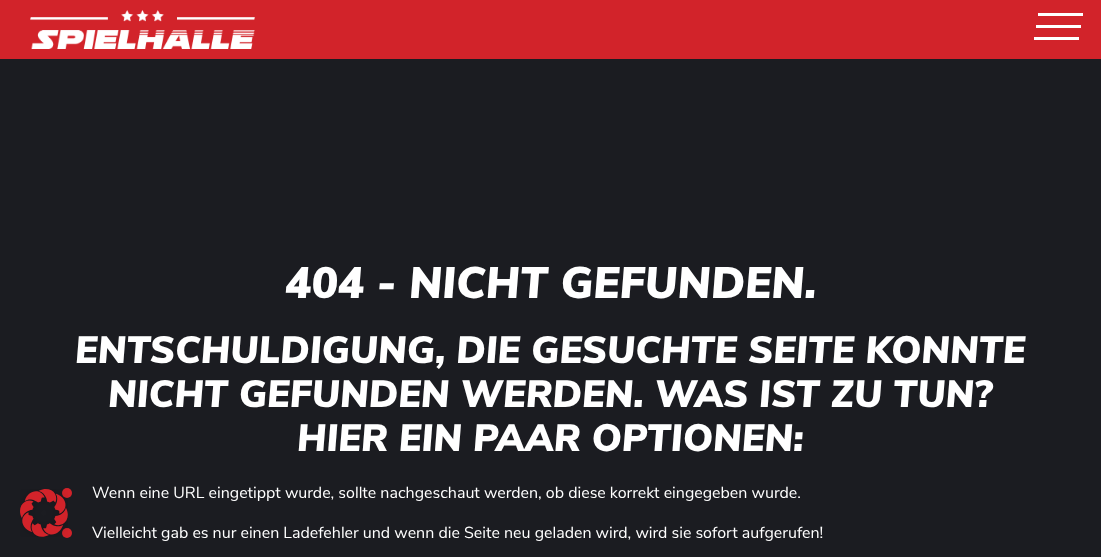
<!DOCTYPE html>
<meta charset="utf-8">
<style>body { margin: 0 } canvas { display: block }</style>
<canvas id="canvas" width="1101" height="557"></canvas>
<img id="img1" src="images/1.png" hidden>
<img id="img2" src="images/2.png" hidden>
<script>
window.onload = function () {
    const canvas = document.getElementById('canvas');
    const context = canvas.getContext('2d');
    context.miterLimit = 4;
    context.fontKerning = 'normal';

    context.fillStyle = 'rgb(27, 28, 33)';
    context.fillRect(0, 0, 1101, 557);
    context.fillStyle = 'rgb(210, 35, 42)';
    context.beginPath();
    context.arc(67, 493, 5, 0, 2 * Math.PI);
    context.fill();
    context.beginPath();
    context.arc(67, 533, 5, 0, 2 * Math.PI);
    context.fill();
    context.drawImage(document.getElementById('img1'), 20, 489, 48, 48);
    context.fillRect(0, 0, 1101, 59);
    context.drawImage(document.getElementById('img2'), 30, 10, 225, 39);
    context.fillStyle = 'rgb(255, 255, 255)';
    context.fillRect(1038, 13, 45, 3);
    context.fillRect(1036, 25, 45, 3);
    context.fillRect(1034, 37, 45, 3);
    context.font = 'italic 900 44px Nunito Sans';
    context.fillText('404 - NICHT GEFUNDEN.', 285, 298);
    context.font = 'italic 900 38px Nunito Sans';
    context.fillText('ENTSCHULDIGUNG, DIE GESUCHTE SEITE KONNTE', 75, 363);
    context.fillText('NICHT GEFUNDEN WERDEN. WAS IST ZU TUN?', 108, 407);
    context.fillText('HIER EIN PAAR OPTIONEN:', 297, 451);
    context.font = '16px Nunito Sans';
    context.fillText('Wenn eine URL eingetippt wurde, sollte nachgeschaut werden, ob diese korrekt eingegeben wurde.', 92, 498);
    context.fillText('Vielleicht gab es nur einen Ladefehler und wenn die Seite neu geladen wird, wird sie sofort aufgerufen!', 92, 538);
};
</script>
